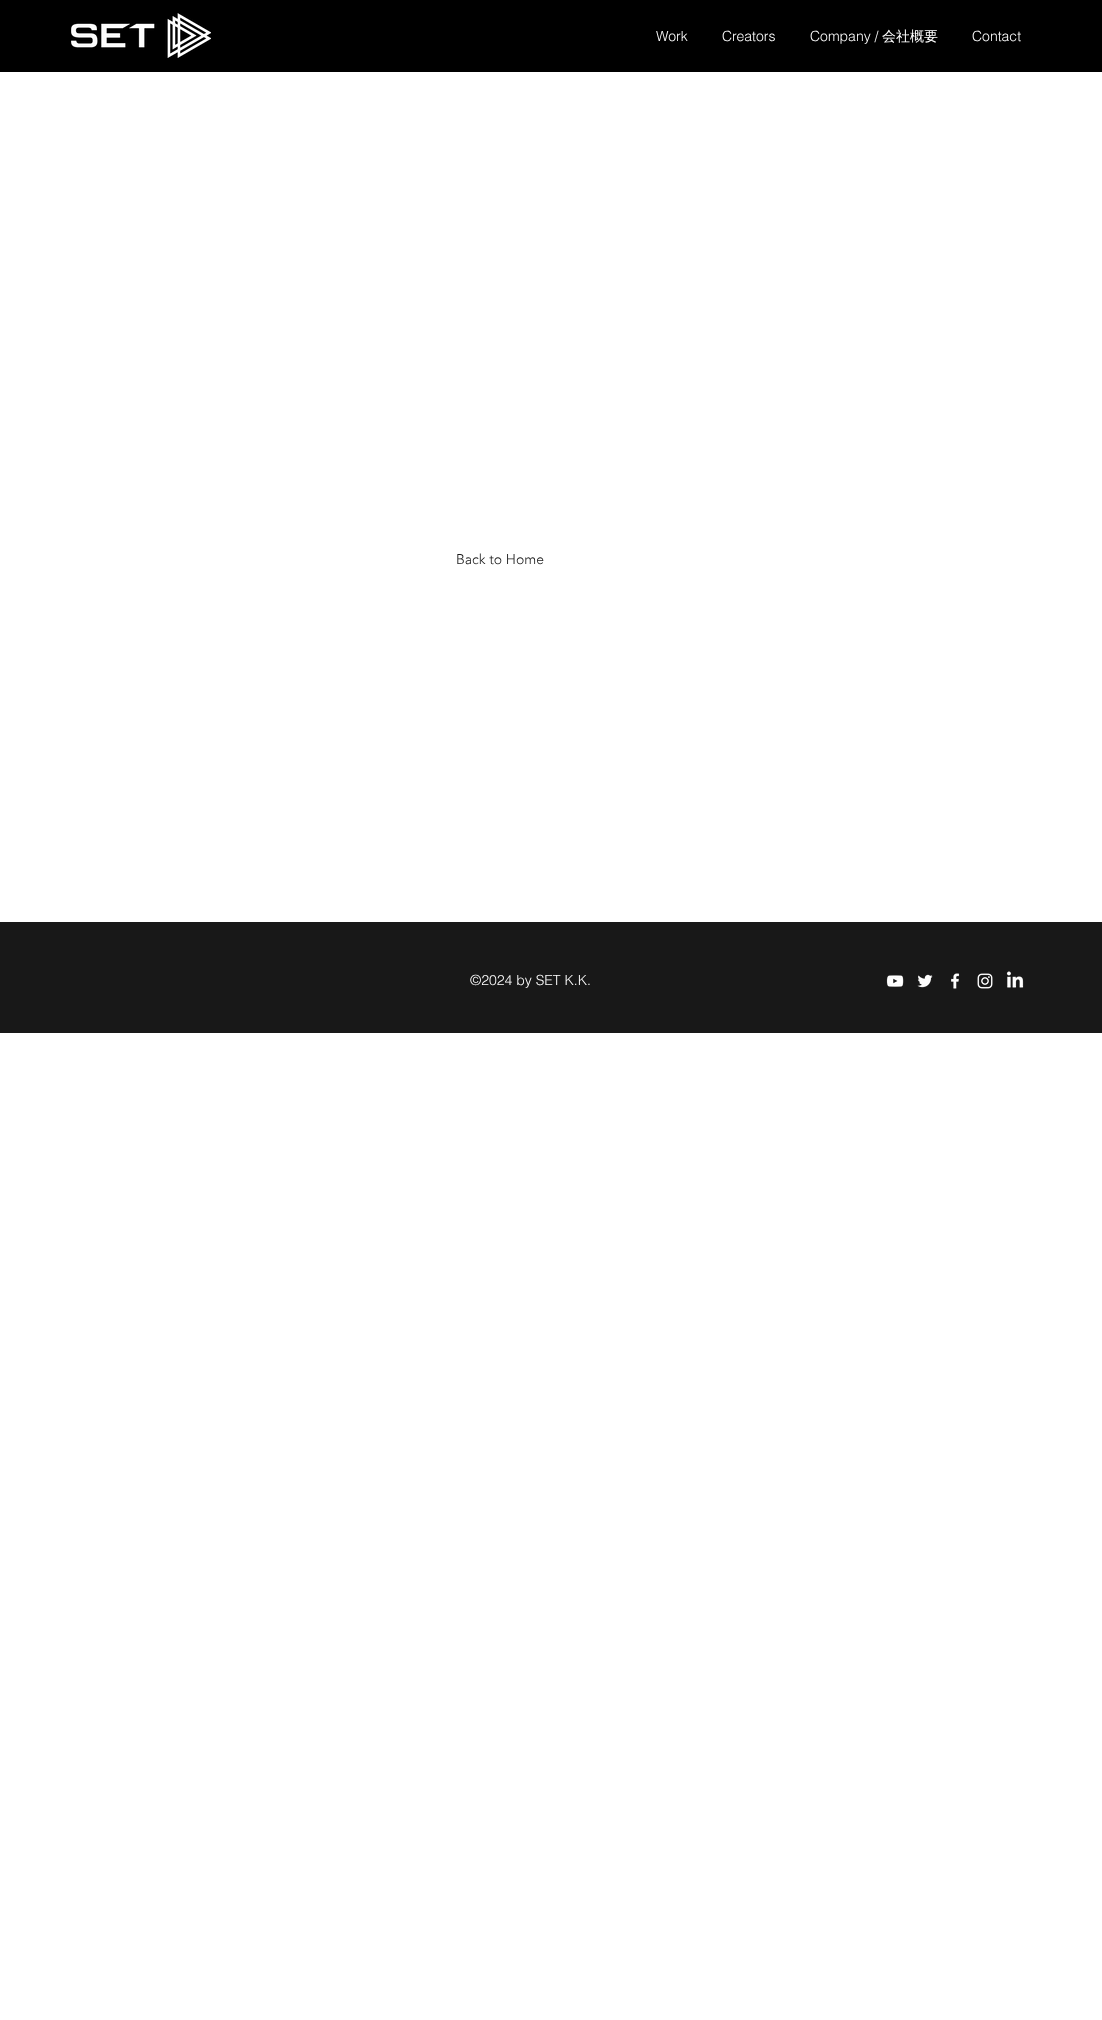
<!DOCTYPE html>
<meta charset="utf-8">
<style>body { margin: 0 } canvas { display: block }</style>
<canvas id="canvas" width="1102" height="2020"></canvas>
<img id="img1" src="images/1.png" hidden>
<img id="img2" src="images/2.png" hidden>
<img id="img3" src="images/3.png" hidden>
<img id="img4" src="images/4.png" hidden>
<img id="img5" src="images/5.png" hidden>
<img id="img6" src="images/6.png" hidden>
<script>
window.onload = function () {
    const canvas = document.getElementById('canvas');
    const context = canvas.getContext('2d');
    context.miterLimit = 4;
    context.fontKerning = 'normal';

    context.fillStyle = 'rgb(255, 255, 255)';
    context.fillRect(0, 0, 1102, 2020);
    context.fillStyle = 'rgb(0, 0, 0)';
    context.fillRect(0, 0, 1102, 72);
    context.drawImage(document.getElementById('img1'), 71, 13, 140, 45);
    context.fillStyle = 'rgb(24, 24, 24)';
    context.fillRect(0, 922, 1102, 111);
    context.drawImage(document.getElementById('img2'), 886, 975, 18, 12);
    context.drawImage(document.getElementById('img3'), 917, 974, 16, 14);
    context.drawImage(document.getElementById('img4'), 951, 973, 9, 16);
    context.drawImage(document.getElementById('img5'), 977, 973, 16, 16);
    context.drawImage(document.getElementById('img6'), 1006, 971, 18, 17);
    context.font = '300 14px helvetica';
    context.fillStyle = 'rgb(255, 255, 255)';
    context.fillText('Work', 656, 41);
    context.fillText('Creators', 722, 41);
    context.fillText('Company /', 810, 41);
    context.font = '500 14px WenQuanYi Zen Hei';
    context.fillText('会社概要', 882, 41);
    context.font = '300 14px helvetica';
    context.fillText('Contact', 972, 41);
    context.font = '300 14px "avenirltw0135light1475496"';
    context.fillStyle = 'rgb(24, 24, 24)';
    context.fillText('Back to Home', 456, 564);
    context.font = '300 14px helvetica';
    context.fillStyle = 'rgb(255, 255, 255)';
    context.fillText('©2024 by SET K.K.', 470, 985);
};
</script>
